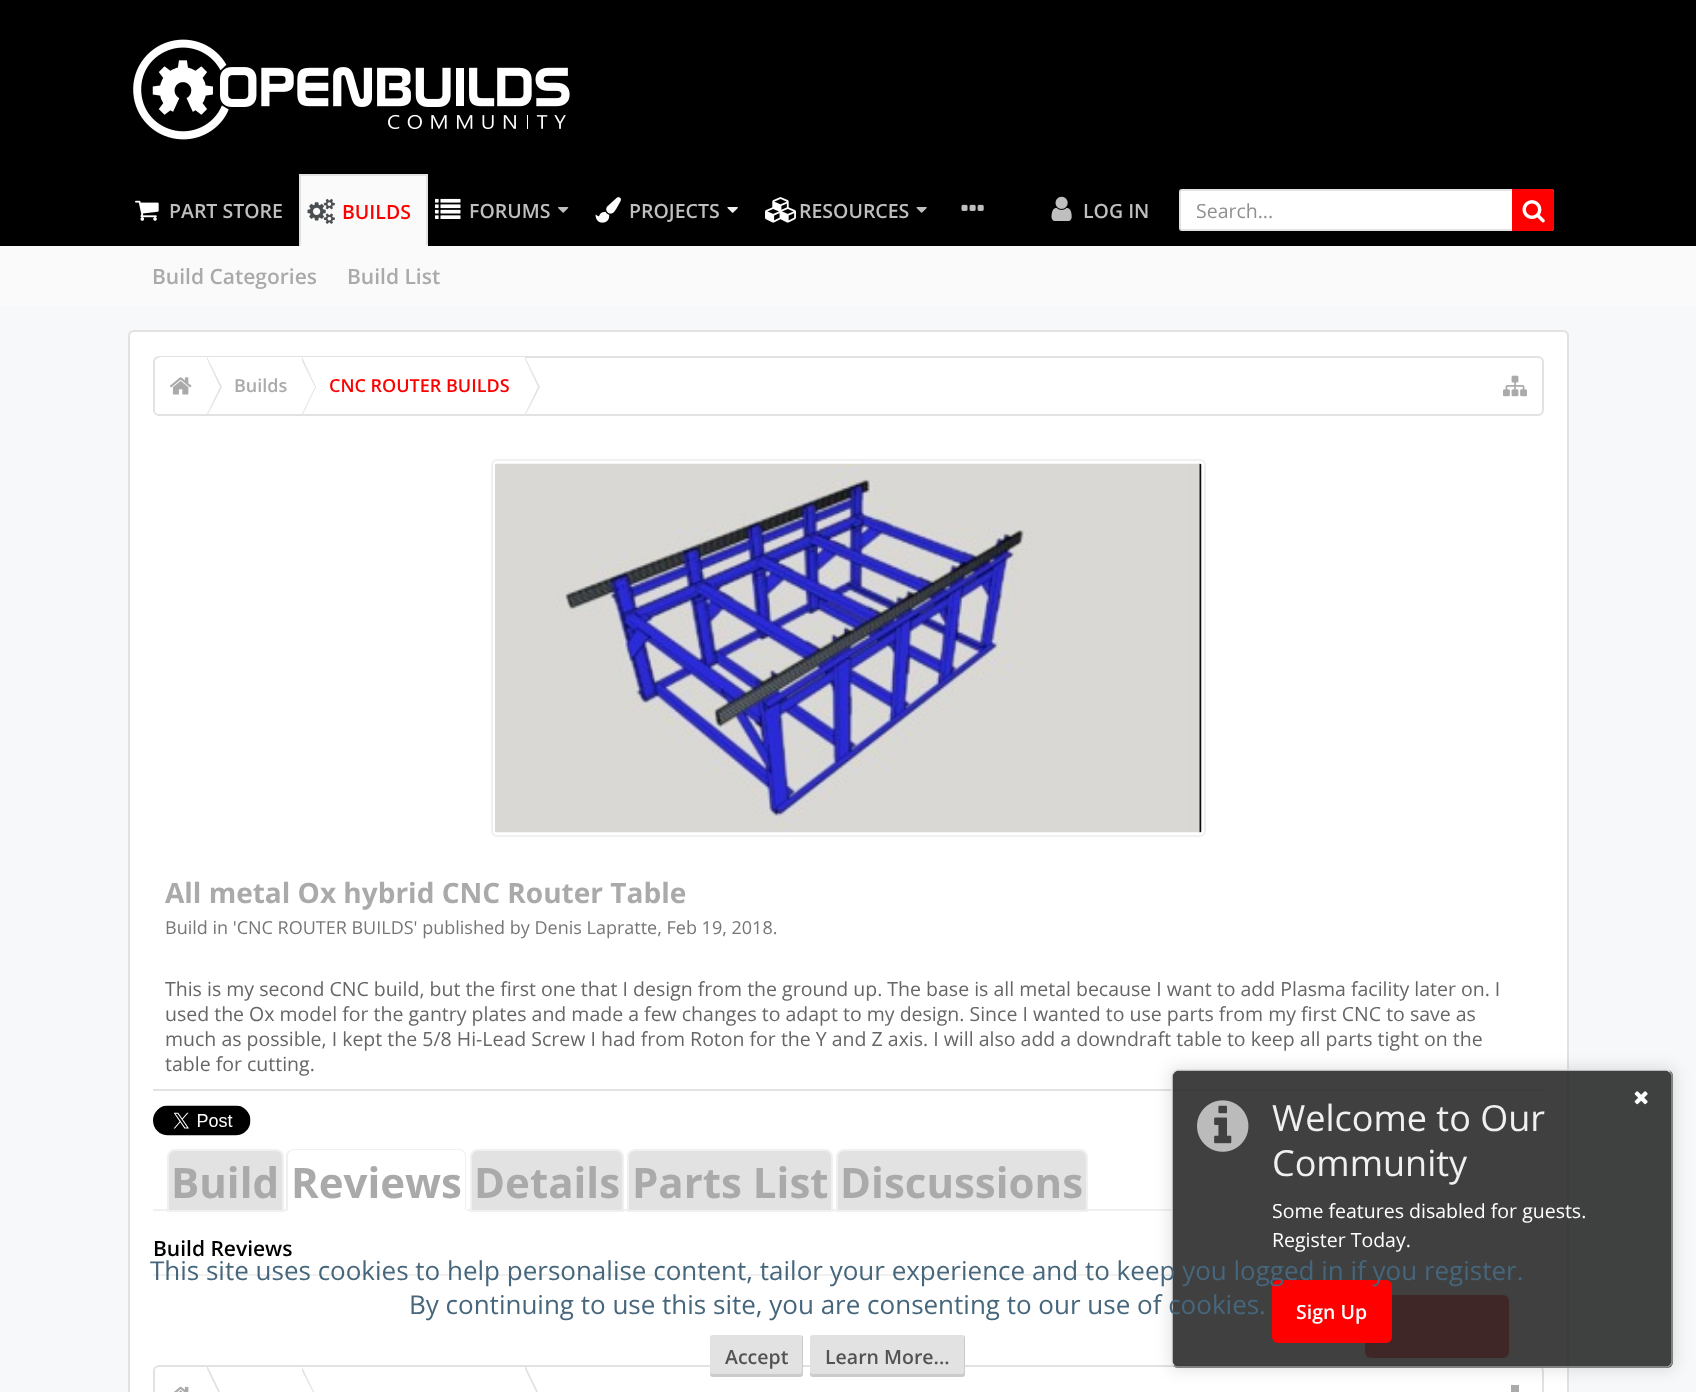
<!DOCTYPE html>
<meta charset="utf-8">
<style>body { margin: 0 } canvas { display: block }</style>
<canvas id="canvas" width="1696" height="1392"></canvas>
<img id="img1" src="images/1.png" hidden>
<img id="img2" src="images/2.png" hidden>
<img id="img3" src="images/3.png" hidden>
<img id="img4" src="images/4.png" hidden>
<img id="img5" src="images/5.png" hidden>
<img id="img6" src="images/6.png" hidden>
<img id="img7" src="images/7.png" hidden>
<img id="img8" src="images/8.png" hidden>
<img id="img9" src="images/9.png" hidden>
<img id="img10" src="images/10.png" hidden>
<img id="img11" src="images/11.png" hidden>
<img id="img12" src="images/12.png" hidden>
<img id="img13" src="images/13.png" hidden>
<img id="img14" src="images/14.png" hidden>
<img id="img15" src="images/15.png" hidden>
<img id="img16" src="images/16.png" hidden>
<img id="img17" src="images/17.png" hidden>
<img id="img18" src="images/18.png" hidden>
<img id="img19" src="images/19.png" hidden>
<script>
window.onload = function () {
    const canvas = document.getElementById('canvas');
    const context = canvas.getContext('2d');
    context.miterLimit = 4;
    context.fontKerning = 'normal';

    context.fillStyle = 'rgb(246, 248, 249)';
    context.fillRect(0, 0, 1696, 1392);
    context.fillStyle = 'rgb(0, 0, 0)';
    context.fillRect(0, 0, 1696, 246);
    context.drawImage(document.getElementById('img1'), 133, 39, 437, 101);
    context.drawImage(document.getElementById('img2'), 135, 200, 24, 21);
    context.drawImage(document.getElementById('img3'), 435, 198, 26, 21);
    context.drawImage(document.getElementById('img4'), 558, 207, 11, 6);
    context.drawImage(document.getElementById('img5'), 595, 197, 26, 26);
    context.drawImage(document.getElementById('img6'), 727, 207, 11, 6);
    context.drawImage(document.getElementById('img7'), 765, 197, 31, 26);
    context.drawImage(document.getElementById('img6'), 916, 207, 11, 6);
    context.fillStyle = 'rgb(250, 250, 250)';
    context.fillRect(301, 176, 125, 69);
    context.fillStyle = 'rgb(226, 226, 226)';
    context.fillRect(299, 174, 129, 2);
    context.fillRect(426, 174, 2, 72);
    context.fillStyle = 'rgb(250, 250, 250)';
    context.fillRect(299, 245, 129, 1);
    context.fillStyle = 'rgb(226, 226, 226)';
    context.fillRect(299, 174, 2, 72);
    context.drawImage(document.getElementById('img8'), 307, 198, 28, 26);
    context.fillStyle = 'rgb(250, 250, 250)';
    context.fillRect(0, 246, 1696, 60);
    context.drawImage(document.getElementById('img9'), 727, 207, 11, 6);
    context.drawImage(document.getElementById('img10'), 961, 204, 23, 7);
    context.drawImage(document.getElementById('img11'), 1051, 196, 21, 25);
    context.fillStyle = 'rgb(255, 255, 255)';
    context.beginPath();
    context.roundRect(1180, 190, 373, 40, 2);
    context.fill();
    context.strokeStyle = 'rgb(226, 226, 226)';
    context.lineWidth = 2;
    context.stroke();
    context.fillStyle = 'rgb(255, 0, 0)';
    context.beginPath();
    context.roundRect(1512, 189, 42, 42, [0, 3, 3, 0]);
    context.fill();
    context.drawImage(document.getElementById('img12'), 1522, 200, 23, 23);
    context.fillStyle = 'rgb(255, 255, 255)';
    context.beginPath();
    context.moveTo(134, 331);
    context.lineTo(1563, 331);
    context.bezierCurveTo(1566, 331, 1568, 333, 1568, 336);
    context.lineTo(1568, 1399);
    context.lineTo(129, 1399);
    context.lineTo(129, 336);
    context.bezierCurveTo(129, 333, 131, 331, 134, 331);
    context.closePath();
    context.fill();
    context.stroke();
    context.beginPath();
    context.roundRect(154, 357, 1389, 58, 5);
    context.stroke();
    context.save();
    context.beginPath();
    context.roundRect(155, 357, 1387, 57, 5);
    context.clip();
    context.beginPath();
    context.roundRect(155, 357, 52, 59, [6, 0, 0, 6]);
    context.fill();
    context.restore();
    context.drawImage(document.getElementById('img13'), 170, 377, 22, 18);
    context.fillRect(207, 357, 318, 1);
    context.fillStyle = 'rgb(226, 226, 226)';
    context.beginPath();
    context.moveTo(208, 414);
    context.lineTo(207, 414);
    context.lineTo(207, 357);
    context.lineTo(222, 387);
    context.closePath();
    context.fill();
    context.fillStyle = 'rgb(255, 255, 255)';
    context.beginPath();
    context.moveTo(207, 414);
    context.lineTo(206, 414);
    context.lineTo(206, 357);
    context.lineTo(220, 387);
    context.closePath();
    context.fill();
    context.fillStyle = 'rgb(226, 226, 226)';
    context.beginPath();
    context.moveTo(303, 414);
    context.lineTo(302, 414);
    context.lineTo(302, 357);
    context.lineTo(316, 387);
    context.closePath();
    context.fill();
    context.fillStyle = 'rgb(255, 255, 255)';
    context.beginPath();
    context.moveTo(302, 414);
    context.lineTo(300, 414);
    context.lineTo(300, 357);
    context.lineTo(315, 387);
    context.closePath();
    context.fill();
    context.fillStyle = 'rgb(226, 226, 226)';
    context.beginPath();
    context.moveTo(526, 414);
    context.lineTo(525, 414);
    context.lineTo(525, 357);
    context.lineTo(540, 387);
    context.closePath();
    context.fill();
    context.fillStyle = 'rgb(255, 255, 255)';
    context.beginPath();
    context.moveTo(525, 414);
    context.lineTo(524, 414);
    context.lineTo(524, 357);
    context.lineTo(538, 387);
    context.closePath();
    context.fill();
    context.drawImage(document.getElementById('img14'), 1503, 375, 24, 22);
    context.fillStyle = 'rgb(226, 226, 226)';
    context.fillRect(153, 1089, 1391, 2);
    context.beginPath();
    context.roundRect(492, 460, 713, 376, 5);
    context.strokeStyle = 'rgb(240, 240, 240)';
    context.stroke();
    context.drawImage(document.getElementById('img15'), 495, 463, 707, 370);
    context.drawImage(document.getElementById('img16'), 153, 1105, 98, 31);
    context.fillStyle = 'rgb(240, 240, 240)';
    context.fillRect(153, 1209, 1391, 2);
    context.fillStyle = 'rgb(226, 226, 226)';
    context.beginPath();
    context.roundRect(168, 1150, 115, 61, [7, 7, 0, 0]);
    context.fill();
    context.stroke();
    context.fillStyle = 'rgb(255, 255, 255)';
    context.beginPath();
    context.roundRect(287, 1149, 180, 62, [8, 8, 0, 0]);
    context.fill();
    context.fillStyle = 'rgb(240, 240, 240)';
    context.beginPath();
    context.moveTo(294, 1149);
    context.lineTo(459, 1149);
    context.bezierCurveTo(463, 1149, 466, 1152, 466, 1156);
    context.lineTo(466, 1210);
    context.lineTo(286, 1210);
    context.lineTo(286, 1156);
    context.bezierCurveTo(286, 1152, 290, 1149, 294, 1149);
    context.closePath();
    context.moveTo(294, 1150);
    context.lineTo(459, 1150);
    context.bezierCurveTo(462, 1150, 465, 1153, 465, 1156);
    context.lineTo(465, 1210);
    context.lineTo(288, 1210);
    context.lineTo(288, 1156);
    context.bezierCurveTo(288, 1153, 291, 1150, 294, 1150);
    context.closePath();
    context.fill('evenodd');
    context.fillStyle = 'rgb(226, 226, 226)';
    context.beginPath();
    context.roundRect(471, 1150, 152, 61, [7, 7, 0, 0]);
    context.fill();
    context.stroke();
    context.beginPath();
    context.roundRect(628, 1150, 204, 61, [7, 7, 0, 0]);
    context.fill();
    context.stroke();
    context.beginPath();
    context.roundRect(837, 1150, 250, 61, [7, 7, 0, 0]);
    context.fill();
    context.stroke();
    context.fillStyle = 'rgb(240, 240, 240)';
    context.fillRect(153, 1274, 1391, 2);
    context.fillStyle = 'rgb(255, 0, 0)';
    context.beginPath();
    context.roundRect(1365, 1295, 144, 63, 6);
    context.fill();
    context.beginPath();
    context.roundRect(154, 1366, 1389, 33, 5);
    context.strokeStyle = 'rgb(226, 226, 226)';
    context.stroke();
    context.fillStyle = 'rgb(170, 170, 170)';
    context.fillRect(1511, 1385, 8, 7);
    context.save();
    context.beginPath();
    context.moveTo(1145, 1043);
    context.lineTo(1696, 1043);
    context.lineTo(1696, 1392);
    context.lineTo(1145, 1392);
    context.closePath();
    context.moveTo(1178, 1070);
    context.lineTo(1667, 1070);
    context.bezierCurveTo(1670.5, 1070, 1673, 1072.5, 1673, 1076);
    context.lineTo(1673, 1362);
    context.bezierCurveTo(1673, 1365.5, 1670.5, 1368, 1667, 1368);
    context.lineTo(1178, 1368);
    context.bezierCurveTo(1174.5, 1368, 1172, 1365.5, 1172, 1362);
    context.lineTo(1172, 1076);
    context.bezierCurveTo(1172, 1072.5, 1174.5, 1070, 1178, 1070);
    context.closePath();
    context.clip('evenodd');
    context.fillStyle = 'rgba(0, 0, 0, 0.1)';
    context.filter = 'blur(7.5px)';
    context.beginPath();
    context.roundRect(1169, 1067, 507, 304, 9);
    context.fill();
    context.filter = 'none';
    context.restore();
    context.fillStyle = 'rgba(43, 43, 43, 0.9)';
    context.beginPath();
    context.roundRect(1172, 1070, 501, 298, 6);
    context.fill();
    context.beginPath();
    context.moveTo(1670, 1072);
    context.bezierCurveTo(1671, 1073, 1672, 1074, 1672, 1075.5);
    context.lineTo(1672, 1362);
    context.bezierCurveTo(1672, 1363.5, 1671, 1364.5, 1670, 1365.5);
    context.bezierCurveTo(1669, 1366.5, 1668, 1367, 1666.5, 1367);
    context.lineTo(1177.5, 1367);
    context.bezierCurveTo(1176, 1367, 1175, 1366.5, 1174, 1365.5);
    context.strokeStyle = 'rgb(151, 151, 151)';
    context.lineWidth = 1.5;
    context.stroke();
    context.beginPath();
    context.moveTo(1174, 1365.5);
    context.bezierCurveTo(1173, 1364.5, 1172, 1363.5, 1172, 1362);
    context.lineTo(1172, 1075.5);
    context.bezierCurveTo(1172, 1074, 1173, 1073, 1174, 1072);
    context.bezierCurveTo(1175, 1071, 1176, 1070, 1177.5, 1070);
    context.lineTo(1666.5, 1070);
    context.bezierCurveTo(1668, 1070, 1669, 1071, 1670, 1072);
    context.strokeStyle = 'rgb(226, 226, 226)';
    context.stroke();
    context.drawImage(document.getElementById('img17'), 1634, 1091, 14, 14);
    context.drawImage(document.getElementById('img18'), 1197, 1100, 52, 52);
    context.fillStyle = 'rgb(255, 0, 0)';
    context.beginPath();
    context.roundRect(1272, 1280, 120, 63, 6);
    context.fill();
    context.drawImage(document.getElementById('img19'), 174, 1386, 15, 6);
    context.fillStyle = 'rgb(226, 226, 226)';
    context.beginPath();
    context.moveTo(208, 1367);
    context.lineTo(222, 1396);
    context.lineTo(208, 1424);
    context.lineTo(207, 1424);
    context.lineTo(207, 1367);
    context.closePath();
    context.fill();
    context.fillStyle = 'rgb(255, 255, 255)';
    context.beginPath();
    context.moveTo(206, 1367);
    context.lineTo(220, 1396);
    context.lineTo(207, 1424);
    context.lineTo(206, 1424);
    context.closePath();
    context.fill();
    context.fillStyle = 'rgb(226, 226, 226)';
    context.beginPath();
    context.moveTo(302, 1367);
    context.lineTo(316, 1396);
    context.lineTo(303, 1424);
    context.lineTo(302, 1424);
    context.closePath();
    context.fill();
    context.fillStyle = 'rgb(255, 255, 255)';
    context.beginPath();
    context.moveTo(300, 1367);
    context.lineTo(315, 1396);
    context.lineTo(301, 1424);
    context.lineTo(300, 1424);
    context.closePath();
    context.fill();
    context.fillStyle = 'rgb(226, 226, 226)';
    context.beginPath();
    context.moveTo(526, 1367);
    context.lineTo(540, 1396);
    context.lineTo(526, 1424);
    context.lineTo(525, 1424);
    context.lineTo(525, 1367);
    context.closePath();
    context.fill();
    context.fillStyle = 'rgb(255, 255, 255)';
    context.beginPath();
    context.moveTo(524, 1367);
    context.lineTo(538, 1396);
    context.lineTo(525, 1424);
    context.lineTo(524, 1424);
    context.closePath();
    context.fill();
    context.fillStyle = 'rgb(226, 226, 226)';
    context.beginPath();
    context.roundRect(710, 1335, 93, 42, 3);
    context.fill();
    context.fillStyle = 'rgba(0, 0, 0, 0.1)';
    context.beginPath();
    context.moveTo(710, 1371);
    context.lineTo(710, 1374);
    context.bezierCurveTo(710, 1376, 711, 1377, 713, 1377);
    context.lineTo(800, 1377);
    context.bezierCurveTo(802, 1377, 803, 1376, 803, 1374);
    context.lineTo(803, 1338);
    context.bezierCurveTo(803, 1337, 803, 1336, 802, 1336);
    context.lineTo(802, 1371);
    context.bezierCurveTo(802, 1373, 801, 1374, 800, 1374);
    context.lineTo(712, 1374);
    context.bezierCurveTo(711, 1374, 710, 1373, 710, 1371);
    context.closePath();
    context.fill();
    context.fillStyle = 'rgb(226, 226, 226)';
    context.beginPath();
    context.roundRect(810, 1335, 155, 42, 3);
    context.fill();
    context.fillStyle = 'rgba(0, 0, 0, 0.1)';
    context.beginPath();
    context.moveTo(810, 1371);
    context.lineTo(810, 1374);
    context.bezierCurveTo(810, 1376, 811, 1377, 813, 1377);
    context.lineTo(962, 1377);
    context.bezierCurveTo(964, 1377, 965, 1376, 965, 1374);
    context.lineTo(965, 1338);
    context.bezierCurveTo(965, 1337, 965, 1336, 964, 1336);
    context.lineTo(964, 1371);
    context.bezierCurveTo(964, 1373, 963, 1374, 962, 1374);
    context.lineTo(813, 1374);
    context.bezierCurveTo(811, 1374, 810, 1373, 810, 1371);
    context.closePath();
    context.fill();
    context.font = '600 19.5px Open Sans';
    context.fillStyle = 'rgb(191, 191, 191)';
    context.fillText('PART STORE', 169, 218);
    context.fillText('FORUMS', 469, 218);
    context.fillText('PROJECTS', 629, 218);
    context.fillText('RESOURCES', 799, 218);
    context.fillStyle = 'rgb(255, 0, 0)';
    context.fillText('BUILDS', 342, 219);
    context.font = '600 21px Open Sans';
    context.fillStyle = 'rgb(170, 170, 170)';
    context.fillText('Build Categories', 152, 284);
    context.fillText('Build List', 347, 284);
    context.font = '600 19.5px Open Sans';
    context.fillStyle = 'rgb(191, 191, 191)';
    context.fillText('LOG IN', 1083, 218);
    context.font = '19.5px Open Sans';
    context.fillStyle = 'rgb(144, 144, 144)';
    context.fillText('Search...', 1196, 218);
    context.font = '600 18px Open Sans';
    context.fillStyle = 'rgb(170, 170, 170)';
    context.fillText('Builds', 234, 392);
    context.fillStyle = 'rgb(255, 0, 0)';
    context.fillText('CNC ROUTER BUILDS', 329, 392);
    context.font = 'bold 28px Open Sans';
    context.fillStyle = 'rgb(170, 170, 170)';
    context.fillText('All metal Ox hybrid CNC Router Table', 165, 903);
    context.font = '18px Open Sans';
    context.fillStyle = 'rgb(118, 118, 118)';
    context.fillText('Build in \'CNC ROUTER BUILDS\' published by Denis Lapratte, Feb 19, 2018.', 165, 934);
    context.font = '19.5px Open Sans';
    context.fillStyle = 'rgb(102, 102, 102)';
    context.fillText('This is my second CNC build, but the first one that I design from the ground up. The base is all metal because I want to add Plasma facility later on. I', 165, 996);
    context.fillText('used the Ox model for the gantry plates and made a few changes to adapt to my design. Since I wanted to use parts from my first CNC to save as', 165, 1021);
    context.fillText('much as possible, I kept the 5/8 Hi-Lead Screw I had from Roton for the Y and Z axis. I will also add a downdraft table to keep all parts tight on the', 165, 1046);
    context.fillText('table for cutting.', 165, 1071);
    context.font = 'bold 42px Open Sans';
    context.fillStyle = 'rgb(170, 170, 170)';
    context.fillText('Build', 171, 1198);
    context.fillText('Reviews', 291, 1198);
    context.fillText('Details', 474, 1198);
    context.fillText('Parts List', 632, 1198);
    context.fillText('Discussions', 840, 1198);
    context.font = '600 21px Open Sans';
    context.fillStyle = 'rgb(0, 0, 0)';
    context.fillText('Build Reviews', 153, 1256);
    context.font = '36px Open Sans';
    context.fillStyle = 'rgb(240, 240, 240)';
    context.fillText('Welcome to Our', 1272, 1131);
    context.fillText('Community', 1272, 1176);
    context.font = '19.5px Open Sans';
    context.fillStyle = 'rgb(255, 255, 255)';
    context.fillText('Some features disabled for guests.', 1272, 1218);
    context.fillText('Register Today.', 1272, 1247);
    context.font = '600 19.5px Open Sans';
    context.fillText('Sign Up', 1296, 1319);
    context.font = '26px Open Sans';
    context.fillStyle = 'rgb(70, 102, 124)';
    context.fillText('This site uses cookies to help personalise content, tailor your experience and to keep you logged in if you register.', 150, 1280);
    context.fillText('By continuing to use this site, you are consenting to our use of cookies.', 409, 1314);
    context.font = '600 19.5px Open Sans';
    context.fillStyle = 'rgb(83, 83, 83)';
    context.fillText('Accept', 725, 1364);
    context.fillText('Learn More...', 825, 1364);
};
</script>
